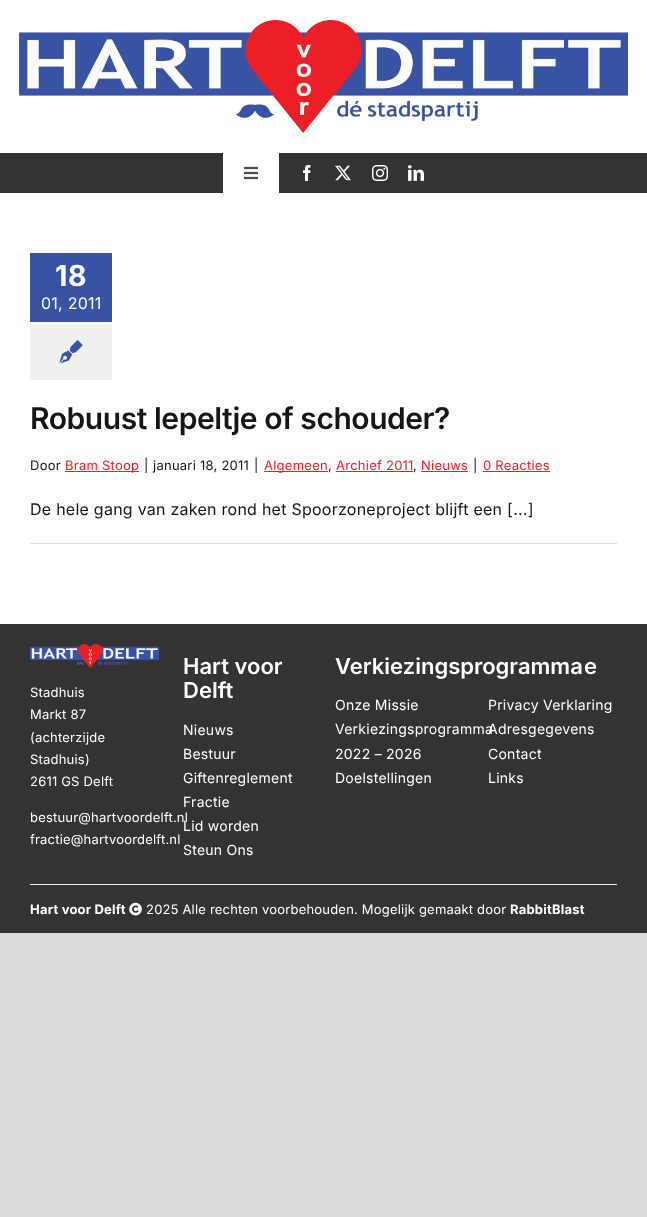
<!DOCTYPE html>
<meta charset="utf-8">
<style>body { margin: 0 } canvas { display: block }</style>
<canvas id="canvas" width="647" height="1217"></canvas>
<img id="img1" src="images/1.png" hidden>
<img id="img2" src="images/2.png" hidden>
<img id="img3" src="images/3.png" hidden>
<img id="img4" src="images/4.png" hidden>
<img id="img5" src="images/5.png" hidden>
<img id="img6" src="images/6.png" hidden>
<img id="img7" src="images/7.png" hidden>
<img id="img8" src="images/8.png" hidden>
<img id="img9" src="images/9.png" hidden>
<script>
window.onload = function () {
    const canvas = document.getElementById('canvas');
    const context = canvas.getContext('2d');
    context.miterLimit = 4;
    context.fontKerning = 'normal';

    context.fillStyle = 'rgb(219, 219, 221)';
    context.fillRect(0, 0, 647, 1217);
    context.fillStyle = 'rgb(255, 255, 255)';
    context.fillRect(0, 193, 647, 431);
    context.fillRect(0, 0, 647, 153);
    context.drawImage(document.getElementById('img1'), 19, 20, 609, 113);
    context.fillStyle = 'rgb(51, 51, 51)';
    context.fillRect(0, 153, 647, 40);
    context.fillStyle = 'rgb(255, 255, 255)';
    context.fillRect(223, 153, 56, 40);
    context.drawImage(document.getElementById('img2'), 244, 166, 14, 14);
    context.drawImage(document.getElementById('img3'), 303, 165, 8, 16);
    context.drawImage(document.getElementById('img4'), 335, 165, 16, 16);
    context.drawImage(document.getElementById('img5'), 372, 165, 16, 16);
    context.drawImage(document.getElementById('img6'), 408, 165, 16, 16);
    context.fillStyle = 'rgb(56, 83, 164)';
    context.fillRect(30, 253, 82, 69);
    context.fillStyle = 'rgb(239, 239, 239)';
    context.fillRect(30, 325, 82, 55);
    context.drawImage(document.getElementById('img7'), 59, 340, 24, 24);
    context.fillStyle = 'rgb(236, 31, 38)';
    context.fillRect(65, 471, 74, 1);
    context.fillRect(264, 471, 64, 1);
    context.fillRect(336, 471, 77, 1);
    context.fillRect(421, 471, 47, 1);
    context.fillRect(483, 471, 67, 1);
    context.fillStyle = 'rgb(219, 219, 221)';
    context.fillRect(30, 543, 587, 1);
    context.fillStyle = 'rgb(51, 51, 51)';
    context.fillRect(0, 624, 647, 309);
    context.drawImage(document.getElementById('img8'), 30, 644, 129, 24);
    context.fillStyle = 'rgb(239, 239, 239)';
    context.fillRect(30, 884, 587, 1);
    context.drawImage(document.getElementById('img9'), 129, 902, 13, 14);
    context.letterSpacing = '0.25px';
    context.font = 'bold 29px Inter';
    context.fillStyle = 'rgb(255, 255, 255)';
    context.fillText('18', 55, 286);
    context.font = '16px Inter';
    context.fillText('01, 2011', 41, 309);
    context.letterSpacing = '-0.45px';
    context.font = '600 30px Inter';
    context.fillStyle = 'rgb(20, 22, 23)';
    context.fillText('Robuust lepeltje of schouder?', 30, 429);
    context.letterSpacing = '0.25px';
    context.font = '13px Inter';
    context.fillText('Door', 30, 470);
    context.fillStyle = 'rgb(236, 31, 38)';
    context.fillText('Bram Stoop', 65, 470);
    context.fillStyle = 'rgb(20, 22, 23)';
    context.fillText('|', 144, 470);
    context.fillText('januari 18, 2011', 153, 470);
    context.fillText('|', 254, 470);
    context.fillStyle = 'rgb(236, 31, 38)';
    context.fillText('Algemeen', 264, 470);
    context.fillStyle = 'rgb(20, 22, 23)';
    context.fillText(',', 328, 470);
    context.fillStyle = 'rgb(236, 31, 38)';
    context.fillText('Archief 2011', 336, 470);
    context.fillStyle = 'rgb(20, 22, 23)';
    context.fillText(',', 413, 470);
    context.fillStyle = 'rgb(236, 31, 38)';
    context.fillText('Nieuws', 421, 470);
    context.fillStyle = 'rgb(20, 22, 23)';
    context.fillText('|', 473, 470);
    context.fillStyle = 'rgb(236, 31, 38)';
    context.fillText('0 Reacties', 483, 470);
    context.font = '16px Inter';
    context.fillStyle = 'rgb(20, 22, 23)';
    context.fillText('De hele gang van zaken rond het Spoorzoneproject blijft een [...]', 30, 515);
    context.letterSpacing = '0px';
    context.font = '600 22px Inter';
    context.fillStyle = 'rgb(255, 255, 255)';
    context.fillText('Hart voor', 183, 674);
    context.fillText('Delft', 183, 698);
    context.letterSpacing = '0.25px';
    context.font = '14px Inter';
    context.fillText('Nieuws', 183, 735);
    context.fillText('Bestuur', 183, 759);
    context.fillText('Giftenreglement', 183, 783);
    context.fillText('Fractie', 183, 807);
    context.fillText('Steun Ons', 183, 855);
    context.letterSpacing = '0px';
    context.font = '600 22px Inter';
    context.fillText('Verkiezingsprogramma', 335, 674);
    context.letterSpacing = '0.25px';
    context.font = '14px Inter';
    context.fillText('Onze Missie', 335, 710);
    context.fillText('Verkiezingsprogramma', 335, 734);
    context.fillText('2022 – 2026', 335, 759);
    context.fillText('Doelstellingen', 335, 783);
    context.letterSpacing = '0.2px';
    context.font = '13px Inter';
    context.fillText('Stadhuis', 30, 697);
    context.fillText('Markt 87', 30, 719);
    context.fillText('(achterzijde', 30, 742);
    context.fillText('Stadhuis)', 30, 764);
    context.fillText('2611 GS Delft', 30, 786);
    context.fillText('bestuur@hartvoordelft.nl', 30, 822);
    context.letterSpacing = '0.25px';
    context.font = '14px Inter';
    context.fillText('Lid worden', 183, 831);
    context.letterSpacing = '0.2px';
    context.font = '13px Inter';
    context.fillText('fractie@hartvoordelft.nl', 30, 844);
    context.letterSpacing = '0px';
    context.font = '600 22px Inter';
    context.fillText('e', 584, 674);
    context.letterSpacing = '0.25px';
    context.font = '14px Inter';
    context.fillText('Privacy Verklaring', 488, 710);
    context.fillText('Adresgegevens', 488, 734);
    context.fillText('Contact', 488, 759);
    context.fillText('Links', 488, 783);
    context.letterSpacing = '0.2px';
    context.font = 'bold 13px Inter';
    context.fillText('Hart voor Delft', 30, 914);
    context.font = '13px Inter';
    context.fillText('2025 Alle rechten voorbehouden. Mogelijk gemaakt door', 146, 914);
    context.font = 'bold 13px Inter';
    context.fillText('RabbitBlast', 510, 914);
};
</script>
